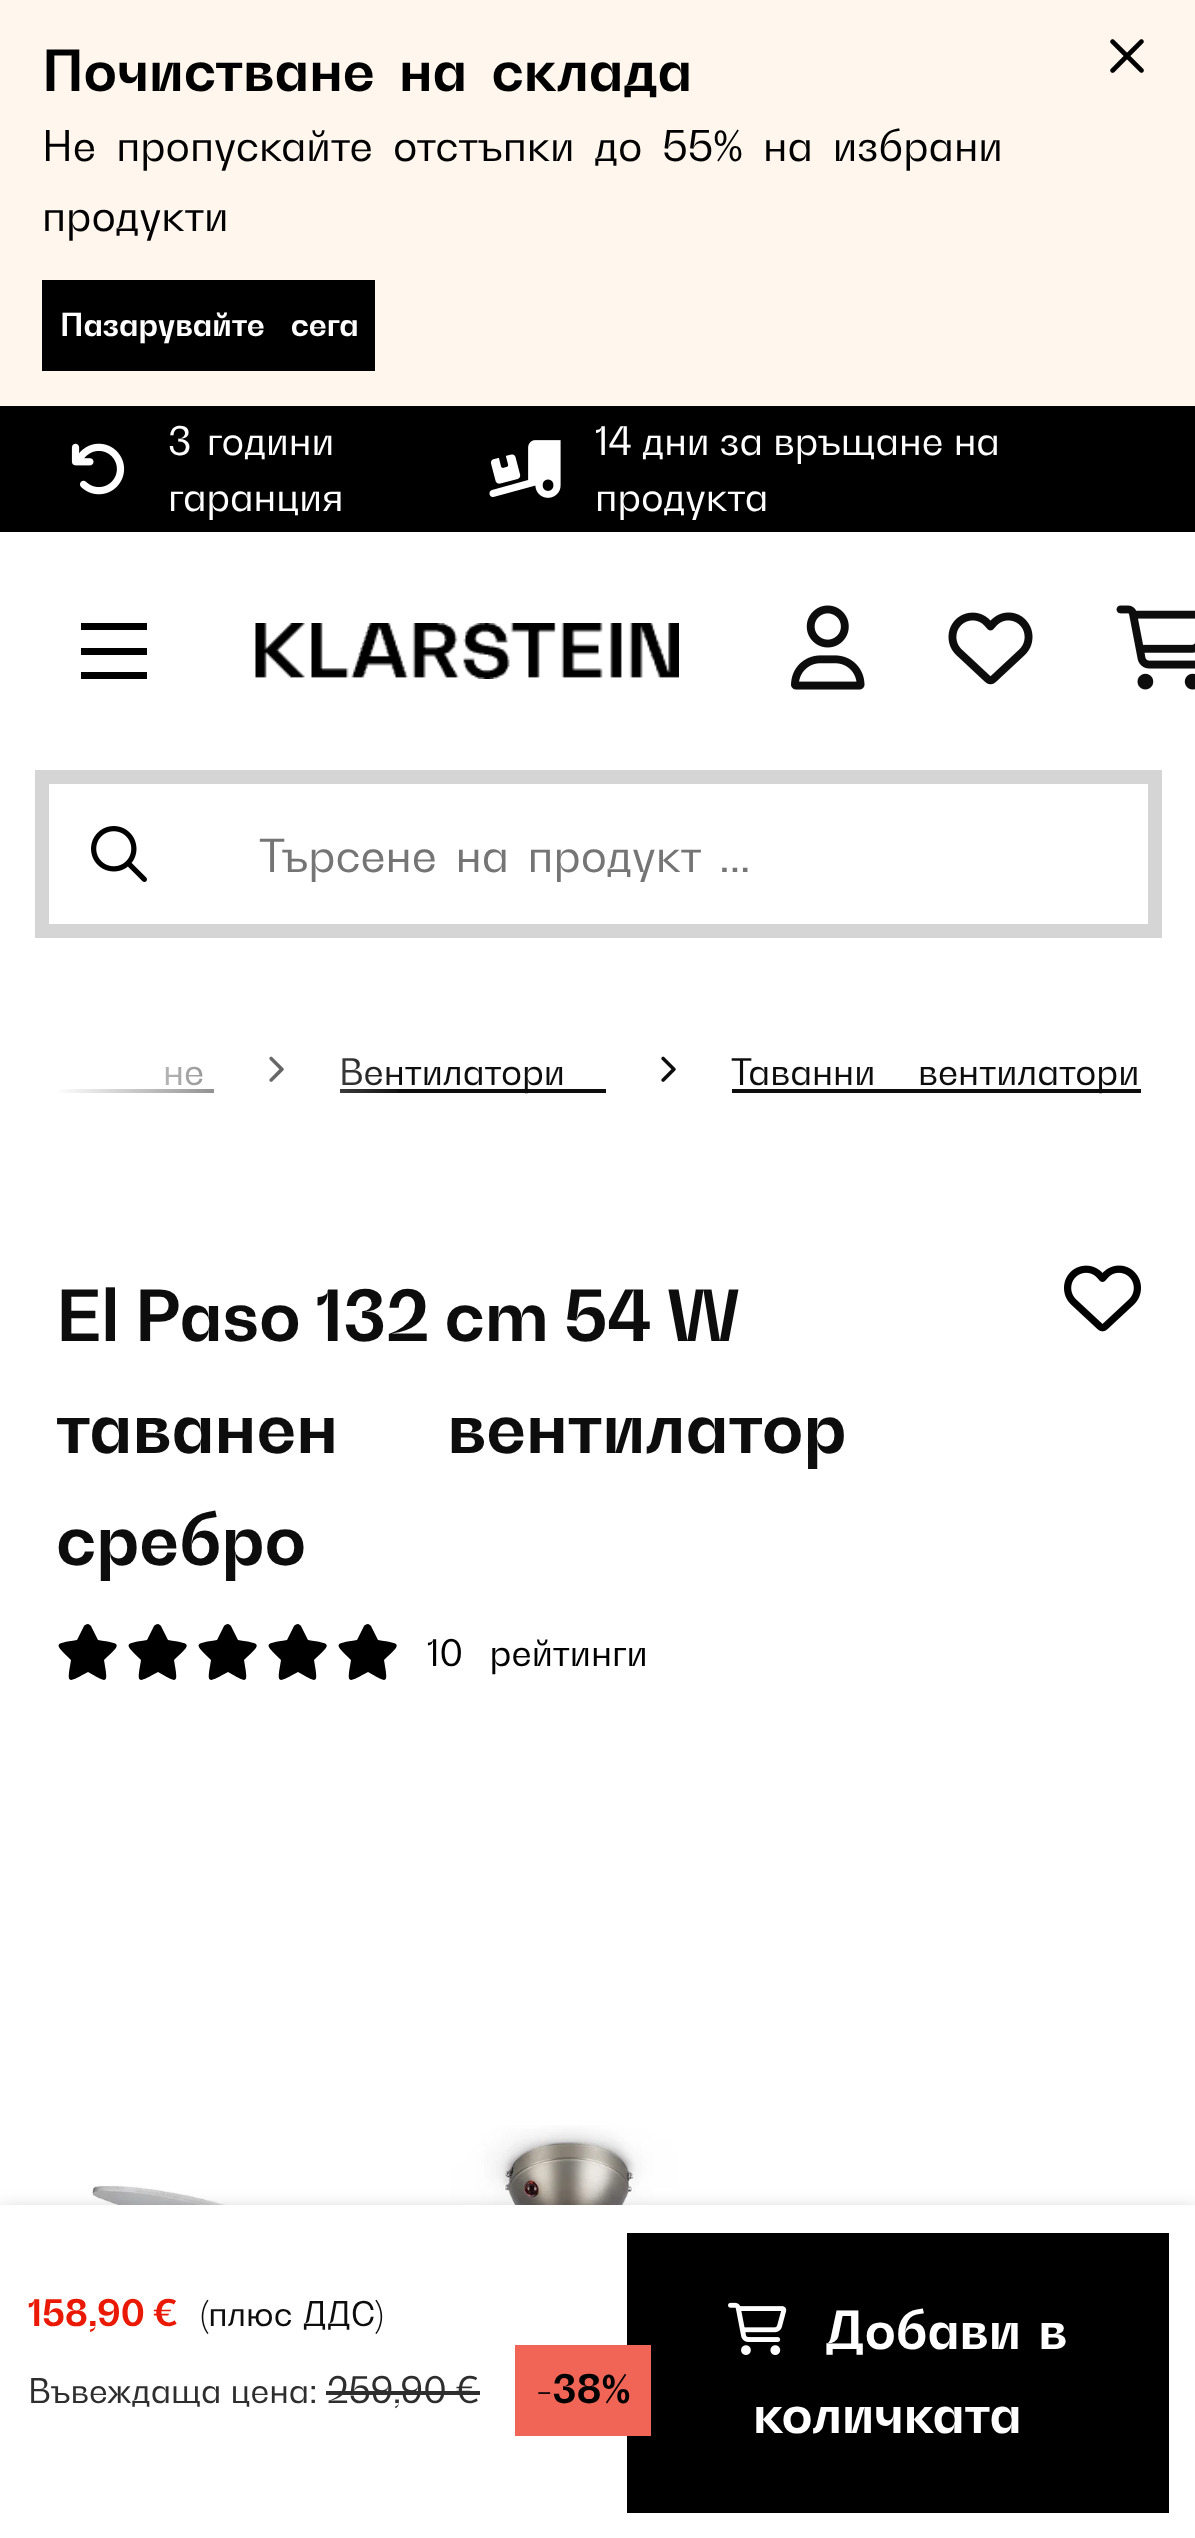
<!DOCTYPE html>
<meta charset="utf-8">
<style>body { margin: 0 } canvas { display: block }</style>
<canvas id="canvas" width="1195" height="2538"></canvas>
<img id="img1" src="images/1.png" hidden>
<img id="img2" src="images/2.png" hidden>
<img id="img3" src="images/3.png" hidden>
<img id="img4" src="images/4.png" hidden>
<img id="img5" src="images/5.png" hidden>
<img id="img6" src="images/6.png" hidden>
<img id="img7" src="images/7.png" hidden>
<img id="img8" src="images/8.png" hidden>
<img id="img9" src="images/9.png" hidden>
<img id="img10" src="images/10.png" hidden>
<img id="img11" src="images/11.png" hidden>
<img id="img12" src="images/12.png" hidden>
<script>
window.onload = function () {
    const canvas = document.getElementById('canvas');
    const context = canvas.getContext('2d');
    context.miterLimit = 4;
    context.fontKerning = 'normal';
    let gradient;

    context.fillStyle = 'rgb(255, 255, 255)';
    context.fillRect(0, 0, 1195, 2538);
    context.fillStyle = 'rgb(255, 246, 237)';
    context.fillRect(0, 0, 1195, 406);
    context.fillStyle = 'rgb(0, 0, 0)';
    context.fillRect(42, 280, 333, 91);
    context.drawImage(document.getElementById('img1'), 1110, 39, 34, 34);
    context.fillRect(0, 406, 1195, 126);
    context.drawImage(document.getElementById('img2'), 71, 443, 54, 52);
    context.drawImage(document.getElementById('img3'), 489, 440, 72, 58);
    context.fillRect(81, 623, 66, 7);
    context.fillRect(81, 648, 66, 7);
    context.fillRect(81, 672, 66, 7);
    context.drawImage(document.getElementById('img4'), 255, 623, 424, 56);
    context.drawImage(document.getElementById('img5'), 791, 605, 74, 85);
    context.drawImage(document.getElementById('img6'), 948, 612, 85, 73);
    context.drawImage(document.getElementById('img7'), 1116, 605, 79, 85);
    context.strokeStyle = 'rgb(213, 213, 213)';
    context.lineWidth = 14;
    context.strokeRect(42, 777, 1113, 154);
    context.drawImage(document.getElementById('img8'), 91, 826, 56, 56);
    context.fillStyle = 'rgb(13, 13, 13)';
    context.fillRect(56, 1089, 158, 4);
    context.drawImage(document.getElementById('img9'), 269, 1056, 15, 26);
    context.fillRect(340, 1089, 266, 4);
    context.drawImage(document.getElementById('img9'), 661, 1056, 15, 26);
    context.fillRect(732, 1089, 409, 4);
    context.drawImage(document.getElementById('img10'), 1064, 1265, 77, 67);
    context.fillStyle = 'rgb(0, 0, 0)';
    context.beginPath();
    context.moveTo(91, 1626);
    context.bezierCurveTo(90, 1625, 89, 1624, 88, 1624);
    context.bezierCurveTo(86, 1624, 85, 1625, 84, 1626);
    context.lineTo(77, 1640);
    context.bezierCurveTo(53, 1644, 54, 1643, 71, 1660);
    context.bezierCurveTo(67, 1684, 66, 1684, 88, 1672);
    context.bezierCurveTo(109, 1684, 108, 1684, 104, 1660);
    context.bezierCurveTo(122, 1643, 122, 1644, 98, 1640);
    context.closePath();
    context.fill();
    context.beginPath();
    context.moveTo(161, 1626);
    context.bezierCurveTo(160, 1625, 159, 1624, 158, 1624);
    context.bezierCurveTo(156, 1624, 155, 1625, 154, 1626);
    context.lineTo(147, 1640);
    context.bezierCurveTo(123, 1644, 124, 1643, 141, 1660);
    context.bezierCurveTo(137, 1684, 136, 1684, 158, 1672);
    context.bezierCurveTo(179, 1684, 178, 1684, 174, 1660);
    context.bezierCurveTo(192, 1643, 192, 1644, 168, 1640);
    context.closePath();
    context.fill();
    context.beginPath();
    context.moveTo(231, 1626);
    context.bezierCurveTo(230, 1625, 229, 1624, 228, 1624);
    context.bezierCurveTo(226, 1624, 225, 1625, 224, 1626);
    context.lineTo(217, 1640);
    context.bezierCurveTo(193, 1644, 194, 1643, 211, 1660);
    context.bezierCurveTo(207, 1684, 206, 1684, 228, 1672);
    context.bezierCurveTo(249, 1684, 248, 1684, 244, 1660);
    context.bezierCurveTo(262, 1643, 262, 1644, 238, 1640);
    context.closePath();
    context.fill();
    context.beginPath();
    context.moveTo(301, 1626);
    context.bezierCurveTo(300, 1625, 299, 1624, 298, 1624);
    context.bezierCurveTo(296, 1624, 295, 1625, 294, 1626);
    context.lineTo(287, 1640);
    context.bezierCurveTo(263, 1644, 264, 1643, 281, 1660);
    context.bezierCurveTo(277, 1684, 276, 1684, 298, 1672);
    context.bezierCurveTo(319, 1684, 318, 1684, 314, 1660);
    context.bezierCurveTo(332, 1643, 332, 1644, 308, 1640);
    context.closePath();
    context.fill();
    context.beginPath();
    context.moveTo(371, 1626);
    context.bezierCurveTo(370, 1625, 369, 1624, 368, 1624);
    context.bezierCurveTo(366, 1624, 365, 1625, 364, 1626);
    context.lineTo(357, 1640);
    context.bezierCurveTo(333, 1644, 334, 1643, 351, 1660);
    context.bezierCurveTo(347, 1684, 346, 1684, 368, 1672);
    context.bezierCurveTo(389, 1684, 388, 1684, 384, 1660);
    context.bezierCurveTo(402, 1643, 402, 1644, 378, 1640);
    context.closePath();
    context.fill();
    context.drawImage(document.getElementById('img11'), 92, 2125, 1017, 80);
    context.fillStyle = 'rgba(0, 0, 0, 0.2)';
    context.filter = 'blur(9px)';
    context.beginPath();
    context.rect(0, 2209, 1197, 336);
    context.fill();
    context.filter = 'none';
    context.fillStyle = 'rgb(255, 255, 255)';
    context.fillRect(0, 2205, 1195, 333);
    context.fillStyle = 'rgb(46, 46, 46)';
    context.fillRect(326, 2391, 154, 4);
    context.fillStyle = 'rgb(0, 0, 0)';
    context.fillRect(627, 2233, 542, 280);
    context.fillStyle = 'rgb(241, 101, 86)';
    context.fillRect(515, 2345, 136, 91);
    context.drawImage(document.getElementById('img12'), 728, 2302, 59, 53);
    context.wordSpacing = '12px';
    context.font = 'bold 56.1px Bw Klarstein';
    context.fillStyle = 'rgb(0, 0, 0)';
    context.fillText('Почистване на склада', 42, 91);
    context.wordSpacing = '10px';
    context.font = '42px Bw Klarstein';
    context.fillText('Не пропускайте отстъпки до 55% на избрани', 42, 161);
    context.wordSpacing = '0px';
    context.fillText('продукти', 42, 231);
    context.wordSpacing = '19px';
    context.font = 'bold 31.5px Bw Klarstein';
    context.fillStyle = 'rgb(255, 255, 255)';
    context.fillText('Пазарувайте сега', 60, 336);
    context.wordSpacing = '6px';
    context.font = '39px Bw Klarstein';
    context.fillText('3 години', 168, 455);
    context.wordSpacing = '0px';
    context.fillText('гаранция', 168, 511);
    context.wordSpacing = '1px';
    context.fillText('14 дни за връщане на', 595, 455);
    context.wordSpacing = '0px';
    context.fillText('продукта', 595, 511);
    context.save();
    context.beginPath();
    context.rect(259, 826, 679, 56);
    context.clip();
    context.wordSpacing = '8px';
    context.font = '45.1px Bw Klarstein';
    context.fillStyle = 'rgb(117, 117, 117)';
    context.fillText('Търсене на продукт ...', 259, 872);
    context.restore();
    context.font = '36.25px Bw Klarstein';
    context.fillStyle = 'rgb(13, 13, 13)';
    context.fillText('не', 163, 1085);
    context.fillText('Вентилатори', 339, 1085);
    gradient = context.createLinearGradient(56, 1064, 406, 1064);
    gradient.addColorStop(0, 'rgb(255, 255, 255)');
    gradient.addColorStop(1, 'rgba(255, 255, 255, 0)');
    context.fillStyle = gradient;
    context.fillRect(56, 1056, 342, 37);
    context.wordSpacing = '34px';
    context.fillStyle = 'rgb(13, 13, 13)';
    context.fillText('Таванни вентилатори', 731, 1085);
    context.wordSpacing = '0px';
    context.font = 'bold 69.75px Bw Klarstein';
    context.fillText('El Paso 132 cm 54 W', 56, 1341);
    context.wordSpacing = '94px';
    context.fillText('таванен вентилатор', 56, 1453);
    context.wordSpacing = '0px';
    context.fillText('сребро', 56, 1565);
    context.wordSpacing = '18px';
    context.font = '36.25px Bw Klarstein';
    context.fillStyle = 'rgb(0, 0, 0)';
    context.fillText('10 рейтинги', 427, 1666);
    context.wordSpacing = '0px';
    context.font = 'bold 36.25px Bw Klarstein';
    context.fillStyle = 'rgb(234, 25, 3)';
    context.fillText('158,90 €', 28, 2326);
    context.wordSpacing = '3px';
    context.font = '33.75px Bw Klarstein';
    context.fillStyle = 'rgb(13, 13, 13)';
    context.fillText('(плюс ДДС)', 200, 2326);
    context.wordSpacing = '1px';
    context.fillStyle = 'rgb(46, 46, 46)';
    context.fillText('Въвеждаща цена:', 28, 2403);
    context.wordSpacing = '0px';
    context.font = '36.25px Bw Klarstein';
    context.fillText('259,90 €', 327, 2403);
    context.font = 'bold 39px Bw Klarstein';
    context.fillStyle = 'rgb(0, 0, 0)';
    context.fillText('-38%', 536, 2403);
    context.wordSpacing = '6px';
    context.font = 'bold 52px Bw Klarstein';
    context.fillStyle = 'rgb(255, 255, 255)';
    context.fillText('Добави в', 825, 2349);
    context.wordSpacing = '0px';
    context.fillText('количката', 753, 2433);
};
</script>
